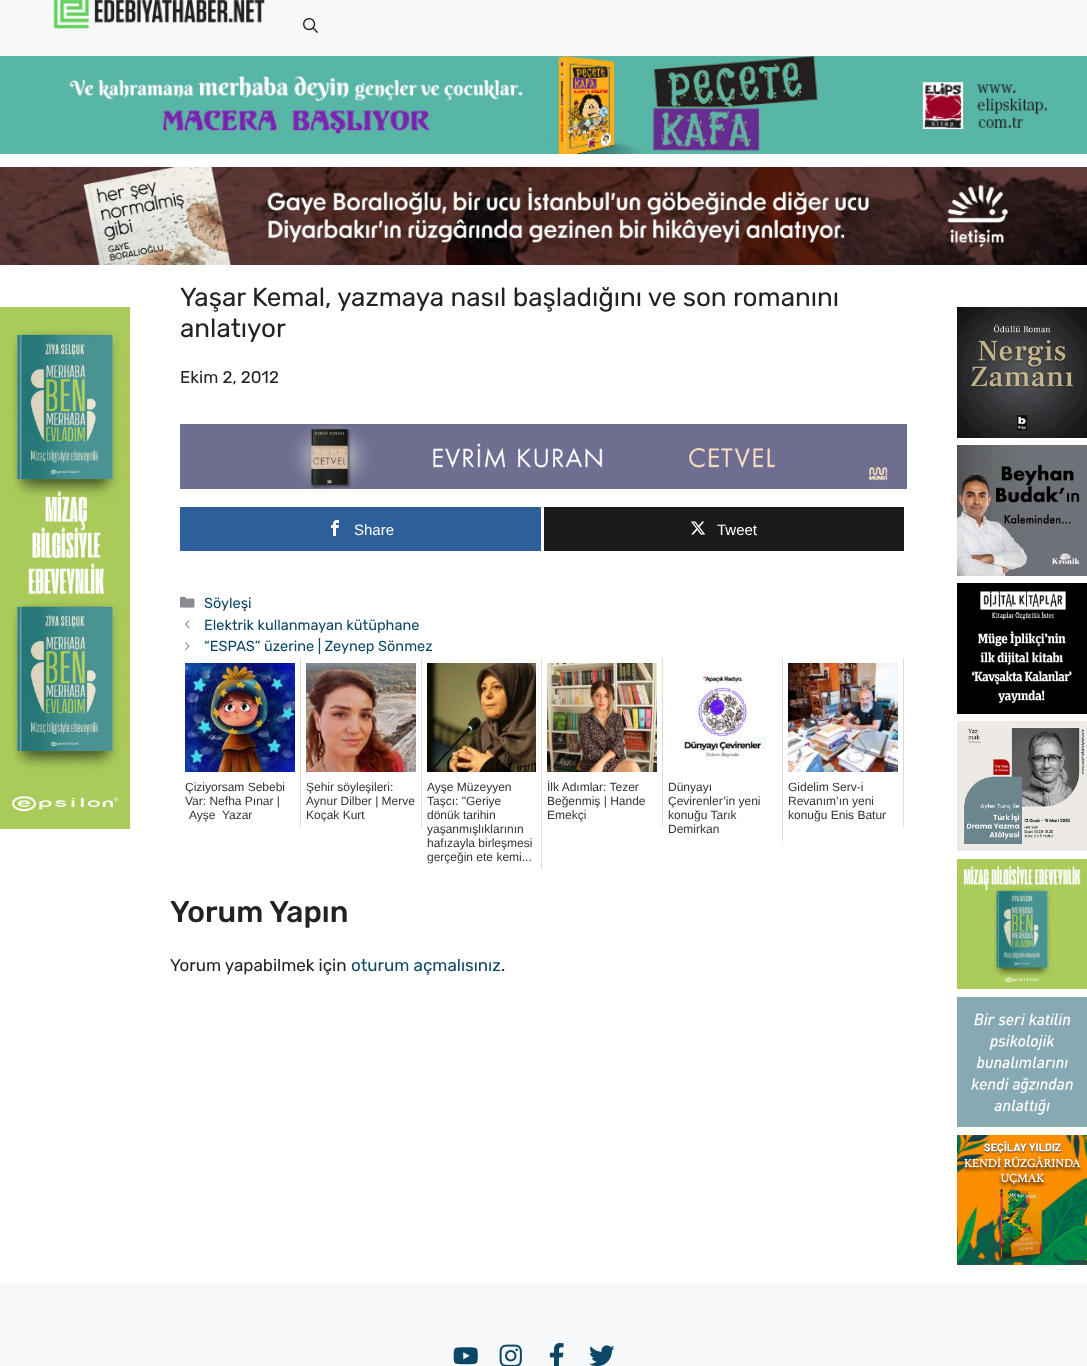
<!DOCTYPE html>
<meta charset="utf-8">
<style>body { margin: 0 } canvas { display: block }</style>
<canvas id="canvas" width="1087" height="1366"></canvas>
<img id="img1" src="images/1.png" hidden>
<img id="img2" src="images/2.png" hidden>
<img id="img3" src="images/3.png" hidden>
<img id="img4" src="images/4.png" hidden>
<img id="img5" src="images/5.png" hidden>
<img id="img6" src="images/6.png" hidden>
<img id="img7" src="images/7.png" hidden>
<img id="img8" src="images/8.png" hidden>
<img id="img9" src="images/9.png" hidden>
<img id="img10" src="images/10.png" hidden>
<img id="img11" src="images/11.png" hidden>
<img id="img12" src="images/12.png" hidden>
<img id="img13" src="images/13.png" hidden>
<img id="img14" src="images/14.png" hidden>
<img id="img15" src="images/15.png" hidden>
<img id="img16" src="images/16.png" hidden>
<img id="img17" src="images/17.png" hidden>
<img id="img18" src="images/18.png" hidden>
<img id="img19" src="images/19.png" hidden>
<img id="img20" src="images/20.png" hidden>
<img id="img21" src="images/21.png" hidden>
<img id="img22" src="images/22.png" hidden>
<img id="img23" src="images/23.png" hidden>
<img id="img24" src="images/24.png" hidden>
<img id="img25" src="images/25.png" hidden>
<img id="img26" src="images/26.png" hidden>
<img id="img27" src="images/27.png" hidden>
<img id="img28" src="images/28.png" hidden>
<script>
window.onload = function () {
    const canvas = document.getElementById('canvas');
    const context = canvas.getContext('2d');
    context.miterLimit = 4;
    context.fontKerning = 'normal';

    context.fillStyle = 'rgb(255, 255, 255)';
    context.fillRect(0, 0, 1087, 1366);
    context.fillStyle = 'rgb(247, 248, 249)';
    context.fillRect(0, 0, 1087, 56);
    context.drawImage(document.getElementById('img1'), 53, 0, 212, 29);
    context.drawImage(document.getElementById('img2'), 303, 18, 15, 15);
    context.drawImage(document.getElementById('img3'), 0, 56, 1087, 98);
    context.drawImage(document.getElementById('img4'), 0, 167, 1087, 98);
    context.drawImage(document.getElementById('img5'), 0, 307, 130, 522);
    context.drawImage(document.getElementById('img6'), 180, 424, 727, 65);
    context.fillStyle = 'rgb(45, 95, 154)';
    context.fillRect(180, 507, 361, 44);
    context.drawImage(document.getElementById('img7'), 331, 520, 8, 16);
    context.fillStyle = 'rgb(26, 26, 26)';
    context.fillRect(544, 507, 360, 44);
    context.drawImage(document.getElementById('img8'), 691, 521, 15, 14);
    context.drawImage(document.getElementById('img9'), 180, 596, 15, 12);
    context.drawImage(document.getElementById('img10'), 185, 620, 5, 9);
    context.drawImage(document.getElementById('img11'), 185, 642, 5, 9);
    context.fillStyle = 'rgb(221, 221, 221)';
    context.fillRect(300, 658, 1, 169);
    context.drawImage(document.getElementById('img12'), 185, 663, 110, 109);
    context.fillRect(421, 658, 1, 169);
    context.drawImage(document.getElementById('img13'), 306, 663, 110, 109);
    context.fillRect(541, 658, 1, 211);
    context.drawImage(document.getElementById('img14'), 427, 663, 109, 109);
    context.fillRect(662, 658, 1, 169);
    context.drawImage(document.getElementById('img15'), 547, 663, 110, 109);
    context.fillRect(782, 658, 1, 183);
    context.drawImage(document.getElementById('img16'), 679, 675, 88, 87);
    context.fillRect(903, 658, 1, 169);
    context.drawImage(document.getElementById('img17'), 788, 663, 110, 109);
    context.drawImage(document.getElementById('img18'), 957, 307, 130, 131);
    context.drawImage(document.getElementById('img19'), 957, 445, 130, 131);
    context.drawImage(document.getElementById('img20'), 957, 583, 130, 131);
    context.drawImage(document.getElementById('img21'), 957, 721, 130, 130);
    context.drawImage(document.getElementById('img22'), 957, 859, 130, 130);
    context.drawImage(document.getElementById('img23'), 957, 997, 130, 130);
    context.drawImage(document.getElementById('img24'), 957, 1135, 130, 130);
    context.fillStyle = 'rgb(247, 248, 249)';
    context.fillRect(0, 1283, 1087, 83);
    context.drawImage(document.getElementById('img25'), 453, 1347, 25, 18);
    context.drawImage(document.getElementById('img26'), 499, 1344, 23, 22);
    context.drawImage(document.getElementById('img27'), 549, 1343, 15, 23);
    context.drawImage(document.getElementById('img28'), 589, 1345, 26, 21);
    context.font = '26px Rubik';
    context.fillStyle = 'rgb(34, 34, 34)';
    context.fillText('Yaşar Kemal, yazmaya nasıl başladığını ve son romanını', 180, 306);
    context.fillText('anlatıyor', 180, 337);
    context.font = '17px Rubik';
    context.fillText('Ekim 2, 2012', 180, 383);
    context.font = '15px Liberation Sans';
    context.fillStyle = 'rgb(255, 255, 255)';
    context.fillText('Share', 354, 535);
    context.fillText('Tweet', 717, 535);
    context.font = '14.5px Rubik';
    context.fillStyle = 'rgb(12, 71, 103)';
    context.fillText('Söyleşi', 204, 608);
    context.fillText('Elektrik kullanmayan kütüphane', 204, 630);
    context.fillText('“ESPAS” üzerine | Zeynep Sönmez', 204, 651);
    context.font = '12px Liberation Sans';
    context.fillStyle = 'rgb(51, 51, 51)';
    context.fillText('Çiziyorsam Sebebi', 185, 791);
    context.fillText('Var: Nefha Pınar |', 185, 805);
    context.fillText('Ayşe  Yazar', 189, 819);
    context.fillText('Şehir söyleşileri:', 306, 791);
    context.fillText('Aynur Dilber | Merve', 306, 805);
    context.fillText('Koçak Kurt', 306, 819);
    context.fillText('Ayşe Müzeyyen', 427, 791);
    context.fillText('Taşcı: "Geriye', 427, 805);
    context.fillText('dönük tarihin', 427, 819);
    context.fillText('yaşanmışlıklarının', 427, 833);
    context.fillText('hafızayla birleşmesi', 427, 847);
    context.fillText('gerçeğin ete kemi...', 427, 861);
    context.fillText('İlk Adımlar: Tezer', 547, 791);
    context.fillText('Beğenmiş | Hande', 547, 805);
    context.fillText('Emekçi', 547, 819);
    context.fillText('Dünyayı', 668, 791);
    context.fillText('Çevirenler’in yeni', 668, 805);
    context.fillText('konuğu Tarık', 668, 819);
    context.fillText('Demirkan', 668, 833);
    context.fillText('Gidelim Serv-i', 788, 791);
    context.fillText('Revanım’ın yeni', 788, 805);
    context.fillText('konuğu Enis Batur', 788, 819);
    context.font = '500 30px Rubik';
    context.fillStyle = 'rgb(34, 34, 34)';
    context.fillText('Yorum Yapın', 170, 922);
    context.font = '17px Rubik';
    context.fillText('Yorum yapabilmek için', 170, 971);
    context.fillStyle = 'rgb(12, 71, 103)';
    context.fillText('oturum açmalısınız', 351, 971);
    context.fillStyle = 'rgb(34, 34, 34)';
    context.fillText('.', 501, 971);
};
</script>
